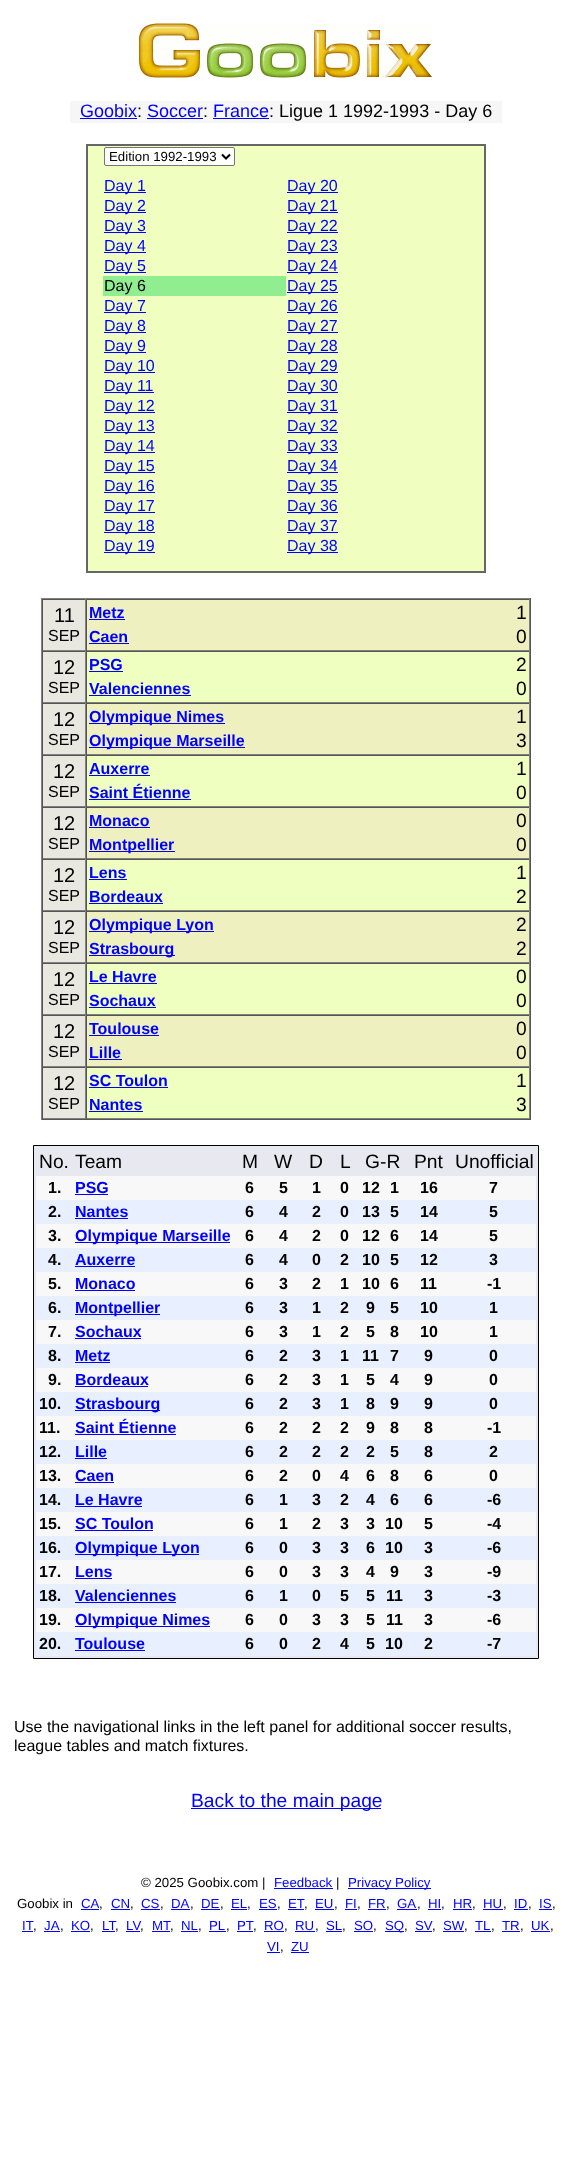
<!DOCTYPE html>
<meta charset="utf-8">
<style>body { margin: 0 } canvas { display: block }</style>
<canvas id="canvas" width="572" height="2176"></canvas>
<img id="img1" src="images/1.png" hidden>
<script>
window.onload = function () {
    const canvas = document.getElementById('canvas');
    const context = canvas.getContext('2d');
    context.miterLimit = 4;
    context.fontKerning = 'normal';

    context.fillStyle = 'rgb(255, 255, 255)';
    context.fillRect(0, 0, 572, 2176);
    context.drawImage(document.getElementById('img1'), 139, 23, 293, 55);
    context.fillStyle = 'rgb(246, 246, 246)';
    context.fillRect(70, 101, 432, 22);
    context.fillStyle = 'rgb(0, 0, 255)';
    context.fillRect(80, 118, 57, 1);
    context.fillRect(147, 118, 56, 1);
    context.fillRect(213, 118, 56, 1);
    context.fillStyle = 'rgb(240, 255, 192)';
    context.beginPath();
    context.rect(87, 145, 398, 427);
    context.fill();
    context.strokeStyle = 'rgb(102, 102, 102)';
    context.lineWidth = 2;
    context.stroke();
    context.fillStyle = 'rgb(255, 255, 255)';
    context.beginPath();
    context.roundRect(104.5, 147.5, 130, 18, 1.5);
    context.fill();
    context.strokeStyle = 'rgb(118, 118, 118)';
    context.lineWidth = 1;
    context.stroke();
    context.beginPath();
    context.moveTo(222, 154.5);
    context.lineTo(226, 158.5);
    context.lineTo(230, 154.5);
    context.strokeStyle = 'rgb(0, 0, 0)';
    context.lineWidth = 2;
    context.stroke();
    context.fillStyle = 'rgb(0, 0, 255)';
    context.fillRect(104, 192, 42, 1);
    context.fillRect(287, 192, 51, 1);
    context.fillRect(104, 212, 42, 1);
    context.fillRect(287, 212, 51, 1);
    context.fillRect(104, 232, 42, 1);
    context.fillRect(287, 232, 51, 1);
    context.fillRect(104, 252, 42, 1);
    context.fillRect(287, 252, 51, 1);
    context.fillRect(104, 272, 42, 1);
    context.fillRect(287, 272, 51, 1);
    context.fillStyle = 'rgb(144, 238, 144)';
    context.fillRect(103, 276, 183, 20);
    context.fillStyle = 'rgb(0, 0, 255)';
    context.fillRect(287, 292, 51, 1);
    context.fillRect(104, 312, 42, 1);
    context.fillRect(287, 312, 51, 1);
    context.fillRect(104, 332, 42, 1);
    context.fillRect(287, 332, 51, 1);
    context.fillRect(104, 352, 42, 1);
    context.fillRect(287, 352, 51, 1);
    context.fillRect(104, 372, 51, 1);
    context.fillRect(287, 372, 51, 1);
    context.fillRect(104, 392, 50, 1);
    context.fillRect(287, 392, 51, 1);
    context.fillRect(104, 412, 51, 1);
    context.fillRect(287, 412, 51, 1);
    context.fillRect(104, 432, 51, 1);
    context.fillRect(287, 432, 51, 1);
    context.fillRect(104, 452, 51, 1);
    context.fillRect(287, 452, 51, 1);
    context.fillRect(104, 472, 51, 1);
    context.fillRect(287, 472, 51, 1);
    context.fillRect(104, 492, 51, 1);
    context.fillRect(287, 492, 51, 1);
    context.fillRect(104, 512, 51, 1);
    context.fillRect(287, 512, 51, 1);
    context.fillRect(104, 532, 51, 1);
    context.fillRect(287, 532, 51, 1);
    context.fillRect(104, 552, 51, 1);
    context.fillRect(287, 552, 51, 1);
    context.fillStyle = 'rgb(128, 128, 128)';
    context.fillRect(41, 598, 490, 1);
    context.fillStyle = 'rgb(85, 85, 85)';
    context.fillRect(530, 598, 1, 522);
    context.fillRect(41, 1119, 490, 1);
    context.fillStyle = 'rgb(128, 128, 128)';
    context.fillRect(41, 598, 1, 522);
    context.fillStyle = 'rgb(238, 240, 192)';
    context.fillRect(87, 600, 442, 50);
    context.fillStyle = 'rgb(232, 232, 224)';
    context.fillRect(43, 600, 42, 50);
    context.fillStyle = 'rgb(85, 85, 85)';
    context.fillRect(42, 599, 488, 1);
    context.fillStyle = 'rgb(128, 128, 128)';
    context.fillRect(85, 599, 1, 52);
    context.fillRect(42, 650, 44, 1);
    context.fillStyle = 'rgb(85, 85, 85)';
    context.fillRect(42, 599, 1, 52);
    context.fillStyle = 'rgb(128, 128, 128)';
    context.fillRect(529, 599, 1, 52);
    context.fillRect(86, 650, 444, 1);
    context.fillStyle = 'rgb(85, 85, 85)';
    context.fillRect(86, 599, 1, 52);
    context.fillStyle = 'rgb(0, 0, 255)';
    context.fillRect(89, 619, 36, 1);
    context.fillRect(89, 643, 40, 1);
    context.fillStyle = 'rgb(238, 255, 192)';
    context.fillRect(87, 652, 442, 50);
    context.fillStyle = 'rgb(232, 232, 224)';
    context.fillRect(43, 652, 42, 50);
    context.fillStyle = 'rgb(85, 85, 85)';
    context.fillRect(42, 651, 488, 1);
    context.fillStyle = 'rgb(128, 128, 128)';
    context.fillRect(85, 651, 1, 52);
    context.fillRect(42, 702, 44, 1);
    context.fillStyle = 'rgb(85, 85, 85)';
    context.fillRect(42, 651, 1, 52);
    context.fillStyle = 'rgb(128, 128, 128)';
    context.fillRect(529, 651, 1, 52);
    context.fillRect(86, 702, 444, 1);
    context.fillStyle = 'rgb(85, 85, 85)';
    context.fillRect(86, 651, 1, 52);
    context.fillStyle = 'rgb(0, 0, 255)';
    context.fillRect(89, 671, 34, 1);
    context.fillRect(89, 695, 102, 1);
    context.fillStyle = 'rgb(238, 240, 192)';
    context.fillRect(87, 704, 442, 50);
    context.fillStyle = 'rgb(232, 232, 224)';
    context.fillRect(43, 704, 42, 50);
    context.fillStyle = 'rgb(85, 85, 85)';
    context.fillRect(42, 703, 488, 1);
    context.fillStyle = 'rgb(128, 128, 128)';
    context.fillRect(85, 703, 1, 52);
    context.fillRect(42, 754, 44, 1);
    context.fillStyle = 'rgb(85, 85, 85)';
    context.fillRect(42, 703, 1, 52);
    context.fillStyle = 'rgb(128, 128, 128)';
    context.fillRect(529, 703, 1, 52);
    context.fillRect(86, 754, 444, 1);
    context.fillStyle = 'rgb(85, 85, 85)';
    context.fillRect(86, 703, 1, 52);
    context.fillStyle = 'rgb(0, 0, 255)';
    context.fillRect(89, 723, 136, 1);
    context.fillRect(89, 747, 156, 1);
    context.fillStyle = 'rgb(238, 255, 192)';
    context.fillRect(87, 756, 442, 50);
    context.fillStyle = 'rgb(232, 232, 224)';
    context.fillRect(43, 756, 42, 50);
    context.fillStyle = 'rgb(85, 85, 85)';
    context.fillRect(42, 755, 488, 1);
    context.fillStyle = 'rgb(128, 128, 128)';
    context.fillRect(85, 755, 1, 52);
    context.fillRect(42, 806, 44, 1);
    context.fillStyle = 'rgb(85, 85, 85)';
    context.fillRect(42, 755, 1, 52);
    context.fillStyle = 'rgb(128, 128, 128)';
    context.fillRect(529, 755, 1, 52);
    context.fillRect(86, 806, 444, 1);
    context.fillStyle = 'rgb(85, 85, 85)';
    context.fillRect(86, 755, 1, 52);
    context.fillStyle = 'rgb(0, 0, 255)';
    context.fillRect(89, 775, 61, 1);
    context.fillRect(89, 799, 102, 1);
    context.fillStyle = 'rgb(238, 240, 192)';
    context.fillRect(87, 808, 442, 50);
    context.fillStyle = 'rgb(232, 232, 224)';
    context.fillRect(43, 808, 42, 50);
    context.fillStyle = 'rgb(85, 85, 85)';
    context.fillRect(42, 807, 488, 1);
    context.fillStyle = 'rgb(128, 128, 128)';
    context.fillRect(85, 807, 1, 52);
    context.fillRect(42, 858, 44, 1);
    context.fillStyle = 'rgb(85, 85, 85)';
    context.fillRect(42, 807, 1, 52);
    context.fillStyle = 'rgb(128, 128, 128)';
    context.fillRect(529, 807, 1, 52);
    context.fillRect(86, 858, 444, 1);
    context.fillStyle = 'rgb(85, 85, 85)';
    context.fillRect(86, 807, 1, 52);
    context.fillStyle = 'rgb(0, 0, 255)';
    context.fillRect(89, 827, 61, 1);
    context.fillRect(89, 851, 86, 1);
    context.fillStyle = 'rgb(238, 255, 192)';
    context.fillRect(87, 860, 442, 50);
    context.fillStyle = 'rgb(232, 232, 224)';
    context.fillRect(43, 860, 42, 50);
    context.fillStyle = 'rgb(85, 85, 85)';
    context.fillRect(42, 859, 488, 1);
    context.fillStyle = 'rgb(128, 128, 128)';
    context.fillRect(85, 859, 1, 52);
    context.fillRect(42, 910, 44, 1);
    context.fillStyle = 'rgb(85, 85, 85)';
    context.fillRect(42, 859, 1, 52);
    context.fillStyle = 'rgb(128, 128, 128)';
    context.fillRect(529, 859, 1, 52);
    context.fillRect(86, 910, 444, 1);
    context.fillStyle = 'rgb(85, 85, 85)';
    context.fillRect(86, 859, 1, 52);
    context.fillStyle = 'rgb(0, 0, 255)';
    context.fillRect(89, 879, 38, 1);
    context.fillRect(89, 903, 74, 1);
    context.fillStyle = 'rgb(238, 240, 192)';
    context.fillRect(87, 912, 442, 50);
    context.fillStyle = 'rgb(232, 232, 224)';
    context.fillRect(43, 912, 42, 50);
    context.fillStyle = 'rgb(85, 85, 85)';
    context.fillRect(42, 911, 488, 1);
    context.fillStyle = 'rgb(128, 128, 128)';
    context.fillRect(85, 911, 1, 52);
    context.fillRect(42, 962, 44, 1);
    context.fillStyle = 'rgb(85, 85, 85)';
    context.fillRect(42, 911, 1, 52);
    context.fillStyle = 'rgb(128, 128, 128)';
    context.fillRect(529, 911, 1, 52);
    context.fillRect(86, 962, 444, 1);
    context.fillStyle = 'rgb(85, 85, 85)';
    context.fillRect(86, 911, 1, 52);
    context.fillStyle = 'rgb(0, 0, 255)';
    context.fillRect(89, 931, 125, 1);
    context.fillRect(89, 955, 86, 1);
    context.fillStyle = 'rgb(238, 255, 192)';
    context.fillRect(87, 964, 442, 50);
    context.fillStyle = 'rgb(232, 232, 224)';
    context.fillRect(43, 964, 42, 50);
    context.fillStyle = 'rgb(85, 85, 85)';
    context.fillRect(42, 963, 488, 1);
    context.fillStyle = 'rgb(128, 128, 128)';
    context.fillRect(85, 963, 1, 52);
    context.fillRect(42, 1014, 44, 1);
    context.fillStyle = 'rgb(85, 85, 85)';
    context.fillRect(42, 963, 1, 52);
    context.fillStyle = 'rgb(128, 128, 128)';
    context.fillRect(529, 963, 1, 52);
    context.fillRect(86, 1014, 444, 1);
    context.fillStyle = 'rgb(85, 85, 85)';
    context.fillRect(86, 963, 1, 52);
    context.fillStyle = 'rgb(0, 0, 255)';
    context.fillRect(89, 983, 68, 1);
    context.fillRect(89, 1007, 67, 1);
    context.fillStyle = 'rgb(238, 240, 192)';
    context.fillRect(87, 1016, 442, 50);
    context.fillStyle = 'rgb(232, 232, 224)';
    context.fillRect(43, 1016, 42, 50);
    context.fillStyle = 'rgb(85, 85, 85)';
    context.fillRect(42, 1015, 488, 1);
    context.fillStyle = 'rgb(128, 128, 128)';
    context.fillRect(85, 1015, 1, 52);
    context.fillRect(42, 1066, 44, 1);
    context.fillStyle = 'rgb(85, 85, 85)';
    context.fillRect(42, 1015, 1, 52);
    context.fillStyle = 'rgb(128, 128, 128)';
    context.fillRect(529, 1015, 1, 52);
    context.fillRect(86, 1066, 444, 1);
    context.fillStyle = 'rgb(85, 85, 85)';
    context.fillRect(86, 1015, 1, 52);
    context.fillStyle = 'rgb(0, 0, 255)';
    context.fillRect(89, 1035, 70, 1);
    context.fillRect(89, 1059, 33, 1);
    context.fillStyle = 'rgb(238, 255, 192)';
    context.fillRect(87, 1068, 442, 50);
    context.fillStyle = 'rgb(232, 232, 224)';
    context.fillRect(43, 1068, 42, 50);
    context.fillStyle = 'rgb(85, 85, 85)';
    context.fillRect(42, 1067, 488, 1);
    context.fillStyle = 'rgb(128, 128, 128)';
    context.fillRect(85, 1067, 1, 52);
    context.fillRect(42, 1118, 44, 1);
    context.fillStyle = 'rgb(85, 85, 85)';
    context.fillRect(42, 1067, 1, 52);
    context.fillStyle = 'rgb(128, 128, 128)';
    context.fillRect(529, 1067, 1, 52);
    context.fillRect(86, 1118, 444, 1);
    context.fillStyle = 'rgb(85, 85, 85)';
    context.fillRect(86, 1067, 1, 52);
    context.fillStyle = 'rgb(0, 0, 255)';
    context.fillRect(89, 1087, 79, 1);
    context.fillRect(89, 1111, 54, 1);
    context.fillStyle = 'rgb(232, 232, 240)';
    context.beginPath();
    context.rect(33.5, 1145.5, 505, 513);
    context.fill();
    context.lineWidth = 1;
    context.stroke();
    context.fillStyle = 'rgb(248, 248, 248)';
    context.fillRect(36, 1176, 500, 24);
    context.fillStyle = 'rgb(0, 0, 255)';
    context.fillRect(75, 1194, 33, 1);
    context.fillStyle = 'rgb(232, 240, 255)';
    context.fillRect(36, 1200, 500, 24);
    context.fillStyle = 'rgb(0, 0, 255)';
    context.fillRect(75, 1218, 53, 1);
    context.fillStyle = 'rgb(248, 248, 248)';
    context.fillRect(36, 1224, 500, 24);
    context.fillStyle = 'rgb(0, 0, 255)';
    context.fillRect(75, 1242, 155, 1);
    context.fillStyle = 'rgb(232, 240, 255)';
    context.fillRect(36, 1248, 500, 24);
    context.fillStyle = 'rgb(0, 0, 255)';
    context.fillRect(75, 1266, 60, 1);
    context.fillStyle = 'rgb(248, 248, 248)';
    context.fillRect(36, 1272, 500, 24);
    context.fillStyle = 'rgb(0, 0, 255)';
    context.fillRect(75, 1290, 60, 1);
    context.fillStyle = 'rgb(232, 240, 255)';
    context.fillRect(36, 1296, 500, 24);
    context.fillStyle = 'rgb(0, 0, 255)';
    context.fillRect(75, 1314, 85, 1);
    context.fillStyle = 'rgb(248, 248, 248)';
    context.fillRect(36, 1320, 500, 24);
    context.fillStyle = 'rgb(0, 0, 255)';
    context.fillRect(75, 1338, 66, 1);
    context.fillStyle = 'rgb(232, 240, 255)';
    context.fillRect(36, 1344, 500, 24);
    context.fillStyle = 'rgb(0, 0, 255)';
    context.fillRect(75, 1362, 35, 1);
    context.fillStyle = 'rgb(248, 248, 248)';
    context.fillRect(36, 1368, 500, 24);
    context.fillStyle = 'rgb(0, 0, 255)';
    context.fillRect(75, 1386, 73, 1);
    context.fillStyle = 'rgb(232, 240, 255)';
    context.fillRect(36, 1392, 500, 24);
    context.fillStyle = 'rgb(0, 0, 255)';
    context.fillRect(75, 1410, 85, 1);
    context.fillStyle = 'rgb(248, 248, 248)';
    context.fillRect(36, 1416, 500, 24);
    context.fillStyle = 'rgb(0, 0, 255)';
    context.fillRect(75, 1434, 101, 1);
    context.fillStyle = 'rgb(232, 240, 255)';
    context.fillRect(36, 1440, 500, 24);
    context.fillStyle = 'rgb(0, 0, 255)';
    context.fillRect(75, 1458, 32, 1);
    context.fillStyle = 'rgb(248, 248, 248)';
    context.fillRect(36, 1464, 500, 24);
    context.fillStyle = 'rgb(0, 0, 255)';
    context.fillRect(75, 1482, 39, 1);
    context.fillStyle = 'rgb(232, 240, 255)';
    context.fillRect(36, 1488, 500, 24);
    context.fillStyle = 'rgb(0, 0, 255)';
    context.fillRect(75, 1506, 67, 1);
    context.fillStyle = 'rgb(248, 248, 248)';
    context.fillRect(36, 1512, 500, 24);
    context.fillStyle = 'rgb(0, 0, 255)';
    context.fillRect(75, 1530, 78, 1);
    context.fillStyle = 'rgb(232, 240, 255)';
    context.fillRect(36, 1536, 500, 24);
    context.fillStyle = 'rgb(0, 0, 255)';
    context.fillRect(75, 1554, 124, 1);
    context.fillStyle = 'rgb(248, 248, 248)';
    context.fillRect(36, 1560, 500, 24);
    context.fillStyle = 'rgb(0, 0, 255)';
    context.fillRect(75, 1578, 37, 1);
    context.fillStyle = 'rgb(232, 240, 255)';
    context.fillRect(36, 1584, 500, 24);
    context.fillStyle = 'rgb(0, 0, 255)';
    context.fillRect(75, 1602, 101, 1);
    context.fillStyle = 'rgb(248, 248, 248)';
    context.fillRect(36, 1608, 500, 24);
    context.fillStyle = 'rgb(0, 0, 255)';
    context.fillRect(75, 1626, 135, 1);
    context.fillStyle = 'rgb(232, 240, 255)';
    context.fillRect(36, 1632, 500, 24);
    context.fillStyle = 'rgb(0, 0, 255)';
    context.fillRect(75, 1650, 70, 1);
    context.fillRect(191, 1808, 190, 1);
    context.fillRect(274, 1888, 59, 1);
    context.fillRect(348, 1888, 83, 1);
    context.fillRect(81, 1909, 18, 1);
    context.fillRect(111, 1909, 19, 1);
    context.fillRect(141, 1909, 19, 1);
    context.fillRect(171, 1909, 19, 1);
    context.fillRect(201, 1909, 19, 1);
    context.fillRect(231, 1909, 16, 1);
    context.fillRect(259, 1909, 18, 1);
    context.fillRect(288, 1909, 16, 1);
    context.fillRect(315, 1909, 19, 1);
    context.fillRect(345, 1909, 12, 1);
    context.fillRect(368, 1909, 18, 1);
    context.fillRect(397, 1909, 20, 1);
    context.fillRect(428, 1909, 13, 1);
    context.fillRect(453, 1909, 19, 1);
    context.fillRect(483, 1909, 20, 1);
    context.fillRect(514, 1909, 14, 1);
    context.fillRect(539, 1909, 13, 1);
    context.fillRect(22, 1931, 11, 1);
    context.fillRect(44, 1931, 16, 1);
    context.fillRect(71, 1931, 19, 1);
    context.fillRect(102, 1931, 13, 1);
    context.fillRect(126, 1931, 14, 1);
    context.fillRect(152, 1931, 18, 1);
    context.fillRect(181, 1931, 17, 1);
    context.fillRect(209, 1931, 17, 1);
    context.fillRect(237, 1931, 16, 1);
    context.fillRect(264, 1931, 20, 1);
    context.fillRect(295, 1931, 20, 1);
    context.fillRect(326, 1931, 16, 1);
    context.fillRect(354, 1931, 19, 1);
    context.fillRect(385, 1931, 19, 1);
    context.fillRect(415, 1931, 17, 1);
    context.fillRect(443, 1931, 21, 1);
    context.fillRect(475, 1931, 16, 1);
    context.fillRect(502, 1931, 18, 1);
    context.fillRect(531, 1931, 19, 1);
    context.fillRect(267, 1952, 13, 1);
    context.fillRect(291, 1952, 18, 1);
    context.font = '18px Liberation Sans';
    context.fillText('Goobix', 80, 117);
    context.fillStyle = 'rgb(0, 0, 0)';
    context.fillText(':', 137, 117);
    context.fillStyle = 'rgb(0, 0, 255)';
    context.fillText('Soccer', 147, 117);
    context.fillStyle = 'rgb(0, 0, 0)';
    context.fillText(':', 203, 117);
    context.fillStyle = 'rgb(0, 0, 255)';
    context.fillText('France', 213, 117);
    context.fillStyle = 'rgb(0, 0, 0)';
    context.fillText(': Ligue 1 1992-1993 - Day 6', 269, 117);
    context.font = '13.25px Liberation Sans';
    context.fillText('Edition 1992-1993', 109, 161);
    context.font = '16px Liberation Sans';
    context.fillStyle = 'rgb(0, 0, 255)';
    context.fillText('Day 1', 104, 191);
    context.fillText('Day 20', 287, 191);
    context.fillText('Day 2', 104, 211);
    context.fillText('Day 21', 287, 211);
    context.fillText('Day 3', 104, 231);
    context.fillText('Day 22', 287, 231);
    context.fillText('Day 4', 104, 251);
    context.fillText('Day 23', 287, 251);
    context.fillText('Day 5', 104, 271);
    context.fillText('Day 24', 287, 271);
    context.fillStyle = 'rgb(0, 0, 0)';
    context.fillText('Day 6', 104, 291);
    context.fillStyle = 'rgb(0, 0, 255)';
    context.fillText('Day 25', 287, 291);
    context.fillText('Day 7', 104, 311);
    context.fillText('Day 26', 287, 311);
    context.fillText('Day 8', 104, 331);
    context.fillText('Day 27', 287, 331);
    context.fillText('Day 9', 104, 351);
    context.fillText('Day 28', 287, 351);
    context.fillText('Day 10', 104, 371);
    context.fillText('Day 29', 287, 371);
    context.fillText('Day 11', 104, 391);
    context.fillText('Day 30', 287, 391);
    context.fillText('Day 12', 104, 411);
    context.fillText('Day 31', 287, 411);
    context.fillText('Day 13', 104, 431);
    context.fillText('Day 32', 287, 431);
    context.fillText('Day 14', 104, 451);
    context.fillText('Day 33', 287, 451);
    context.fillText('Day 15', 104, 471);
    context.fillText('Day 34', 287, 471);
    context.fillText('Day 16', 104, 491);
    context.fillText('Day 35', 287, 491);
    context.fillText('Day 17', 104, 511);
    context.fillText('Day 36', 287, 511);
    context.fillText('Day 18', 104, 531);
    context.fillText('Day 37', 287, 531);
    context.fillText('Day 19', 104, 551);
    context.fillText('Day 38', 287, 551);
    context.font = '20px Liberation Sans';
    context.fillStyle = 'rgb(0, 0, 0)';
    context.fillText('11', 54, 622);
    context.font = '16px Liberation Sans';
    context.fillText('SEP', 48, 641);
    context.font = 'bold 16px Liberation Sans';
    context.fillStyle = 'rgb(0, 0, 255)';
    context.fillText('Metz', 89, 618);
    context.font = '19.25px Liberation Sans';
    context.fillStyle = 'rgb(0, 0, 0)';
    context.fillText('1', 516, 619);
    context.font = 'bold 16px Liberation Sans';
    context.fillStyle = 'rgb(0, 0, 255)';
    context.fillText('Caen', 89, 642);
    context.font = '19.25px Liberation Sans';
    context.fillStyle = 'rgb(0, 0, 0)';
    context.fillText('0', 516, 643);
    context.font = '20px Liberation Sans';
    context.fillText('12', 53, 674);
    context.font = '16px Liberation Sans';
    context.fillText('SEP', 48, 693);
    context.font = 'bold 16px Liberation Sans';
    context.fillStyle = 'rgb(0, 0, 255)';
    context.fillText('PSG', 89, 670);
    context.font = '19.25px Liberation Sans';
    context.fillStyle = 'rgb(0, 0, 0)';
    context.fillText('2', 516, 671);
    context.font = 'bold 16px Liberation Sans';
    context.fillStyle = 'rgb(0, 0, 255)';
    context.fillText('Valenciennes', 89, 694);
    context.font = '19.25px Liberation Sans';
    context.fillStyle = 'rgb(0, 0, 0)';
    context.fillText('0', 516, 695);
    context.font = '20px Liberation Sans';
    context.fillText('12', 53, 726);
    context.font = '16px Liberation Sans';
    context.fillText('SEP', 48, 745);
    context.font = 'bold 16px Liberation Sans';
    context.fillStyle = 'rgb(0, 0, 255)';
    context.fillText('Olympique Nimes', 89, 722);
    context.font = '19.25px Liberation Sans';
    context.fillStyle = 'rgb(0, 0, 0)';
    context.fillText('1', 516, 723);
    context.font = 'bold 16px Liberation Sans';
    context.fillStyle = 'rgb(0, 0, 255)';
    context.fillText('Olympique Marseille', 89, 746);
    context.font = '19.25px Liberation Sans';
    context.fillStyle = 'rgb(0, 0, 0)';
    context.fillText('3', 516, 747);
    context.font = '20px Liberation Sans';
    context.fillText('12', 53, 778);
    context.font = '16px Liberation Sans';
    context.fillText('SEP', 48, 797);
    context.font = 'bold 16px Liberation Sans';
    context.fillStyle = 'rgb(0, 0, 255)';
    context.fillText('Auxerre', 89, 774);
    context.font = '19.25px Liberation Sans';
    context.fillStyle = 'rgb(0, 0, 0)';
    context.fillText('1', 516, 775);
    context.font = 'bold 16px Liberation Sans';
    context.fillStyle = 'rgb(0, 0, 255)';
    context.fillText('Saint Étienne', 89, 798);
    context.font = '19.25px Liberation Sans';
    context.fillStyle = 'rgb(0, 0, 0)';
    context.fillText('0', 516, 799);
    context.font = '20px Liberation Sans';
    context.fillText('12', 53, 830);
    context.font = '16px Liberation Sans';
    context.fillText('SEP', 48, 849);
    context.font = 'bold 16px Liberation Sans';
    context.fillStyle = 'rgb(0, 0, 255)';
    context.fillText('Monaco', 89, 826);
    context.font = '19.25px Liberation Sans';
    context.fillStyle = 'rgb(0, 0, 0)';
    context.fillText('0', 516, 827);
    context.font = 'bold 16px Liberation Sans';
    context.fillStyle = 'rgb(0, 0, 255)';
    context.fillText('Montpellier', 89, 850);
    context.font = '19.25px Liberation Sans';
    context.fillStyle = 'rgb(0, 0, 0)';
    context.fillText('0', 516, 851);
    context.font = '20px Liberation Sans';
    context.fillText('12', 53, 882);
    context.font = '16px Liberation Sans';
    context.fillText('SEP', 48, 901);
    context.font = 'bold 16px Liberation Sans';
    context.fillStyle = 'rgb(0, 0, 255)';
    context.fillText('Lens', 89, 878);
    context.font = '19.25px Liberation Sans';
    context.fillStyle = 'rgb(0, 0, 0)';
    context.fillText('1', 516, 879);
    context.font = 'bold 16px Liberation Sans';
    context.fillStyle = 'rgb(0, 0, 255)';
    context.fillText('Bordeaux', 89, 902);
    context.font = '19.25px Liberation Sans';
    context.fillStyle = 'rgb(0, 0, 0)';
    context.fillText('2', 516, 903);
    context.font = '20px Liberation Sans';
    context.fillText('12', 53, 934);
    context.font = '16px Liberation Sans';
    context.fillText('SEP', 48, 953);
    context.font = 'bold 16px Liberation Sans';
    context.fillStyle = 'rgb(0, 0, 255)';
    context.fillText('Olympique Lyon', 89, 930);
    context.font = '19.25px Liberation Sans';
    context.fillStyle = 'rgb(0, 0, 0)';
    context.fillText('2', 516, 931);
    context.font = 'bold 16px Liberation Sans';
    context.fillStyle = 'rgb(0, 0, 255)';
    context.fillText('Strasbourg', 89, 954);
    context.font = '19.25px Liberation Sans';
    context.fillStyle = 'rgb(0, 0, 0)';
    context.fillText('2', 516, 955);
    context.font = '20px Liberation Sans';
    context.fillText('12', 53, 986);
    context.font = '16px Liberation Sans';
    context.fillText('SEP', 48, 1005);
    context.font = 'bold 16px Liberation Sans';
    context.fillStyle = 'rgb(0, 0, 255)';
    context.fillText('Le Havre', 89, 982);
    context.font = '19.25px Liberation Sans';
    context.fillStyle = 'rgb(0, 0, 0)';
    context.fillText('0', 516, 983);
    context.font = 'bold 16px Liberation Sans';
    context.fillStyle = 'rgb(0, 0, 255)';
    context.fillText('Sochaux', 89, 1006);
    context.font = '19.25px Liberation Sans';
    context.fillStyle = 'rgb(0, 0, 0)';
    context.fillText('0', 516, 1007);
    context.font = '20px Liberation Sans';
    context.fillText('12', 53, 1038);
    context.font = '16px Liberation Sans';
    context.fillText('SEP', 48, 1057);
    context.font = 'bold 16px Liberation Sans';
    context.fillStyle = 'rgb(0, 0, 255)';
    context.fillText('Toulouse', 89, 1034);
    context.font = '19.25px Liberation Sans';
    context.fillStyle = 'rgb(0, 0, 0)';
    context.fillText('0', 516, 1035);
    context.font = 'bold 16px Liberation Sans';
    context.fillStyle = 'rgb(0, 0, 255)';
    context.fillText('Lille', 89, 1058);
    context.font = '19.25px Liberation Sans';
    context.fillStyle = 'rgb(0, 0, 0)';
    context.fillText('0', 516, 1059);
    context.font = '20px Liberation Sans';
    context.fillText('12', 53, 1090);
    context.font = '16px Liberation Sans';
    context.fillText('SEP', 48, 1109);
    context.font = 'bold 16px Liberation Sans';
    context.fillStyle = 'rgb(0, 0, 255)';
    context.fillText('SC Toulon', 89, 1086);
    context.font = '19.25px Liberation Sans';
    context.fillStyle = 'rgb(0, 0, 0)';
    context.fillText('1', 516, 1087);
    context.font = 'bold 16px Liberation Sans';
    context.fillStyle = 'rgb(0, 0, 255)';
    context.fillText('Nantes', 89, 1110);
    context.font = '19.25px Liberation Sans';
    context.fillStyle = 'rgb(0, 0, 0)';
    context.fillText('3', 516, 1111);
    context.fillText('No.', 39, 1168);
    context.fillText('Team', 75, 1168);
    context.fillText('M', 242, 1168);
    context.fillText('W', 274, 1168);
    context.fillText('D', 309, 1168);
    context.fillText('L', 340, 1168);
    context.fillText('G-R', 365, 1168);
    context.fillText('Pnt', 414, 1168);
    context.fillText('Unofficial', 455, 1168);
    context.font = 'bold 16px Liberation Sans';
    context.fillText('1.', 48, 1193);
    context.fillStyle = 'rgb(0, 0, 255)';
    context.fillText('PSG', 75, 1193);
    context.fillStyle = 'rgb(0, 0, 0)';
    context.fillText('6', 245, 1193);
    context.fillText('5', 279, 1193);
    context.fillText('1', 312, 1193);
    context.fillText('0', 340, 1193);
    context.fillText('12', 362, 1193);
    context.fillText('1', 390, 1193);
    context.fillText('16', 420, 1193);
    context.fillText('7', 489, 1193);
    context.fillText('2.', 48, 1217);
    context.fillStyle = 'rgb(0, 0, 255)';
    context.fillText('Nantes', 75, 1217);
    context.fillStyle = 'rgb(0, 0, 0)';
    context.fillText('6', 245, 1217);
    context.fillText('4', 279, 1217);
    context.fillText('2', 312, 1217);
    context.fillText('0', 340, 1217);
    context.fillText('13', 362, 1217);
    context.fillText('5', 390, 1217);
    context.fillText('14', 420, 1217);
    context.fillText('5', 489, 1217);
    context.fillText('3.', 48, 1241);
    context.fillStyle = 'rgb(0, 0, 255)';
    context.fillText('Olympique Marseille', 75, 1241);
    context.fillStyle = 'rgb(0, 0, 0)';
    context.fillText('6', 245, 1241);
    context.fillText('4', 279, 1241);
    context.fillText('2', 312, 1241);
    context.fillText('0', 340, 1241);
    context.fillText('12', 362, 1241);
    context.fillText('6', 390, 1241);
    context.fillText('14', 420, 1241);
    context.fillText('5', 489, 1241);
    context.fillText('4.', 48, 1265);
    context.fillStyle = 'rgb(0, 0, 255)';
    context.fillText('Auxerre', 75, 1265);
    context.fillStyle = 'rgb(0, 0, 0)';
    context.fillText('6', 245, 1265);
    context.fillText('4', 279, 1265);
    context.fillText('0', 312, 1265);
    context.fillText('2', 340, 1265);
    context.fillText('10', 362, 1265);
    context.fillText('5', 390, 1265);
    context.fillText('12', 420, 1265);
    context.fillText('3', 489, 1265);
    context.fillText('5.', 48, 1289);
    context.fillStyle = 'rgb(0, 0, 255)';
    context.fillText('Monaco', 75, 1289);
    context.fillStyle = 'rgb(0, 0, 0)';
    context.fillText('6', 245, 1289);
    context.fillText('3', 279, 1289);
    context.fillText('2', 312, 1289);
    context.fillText('1', 340, 1289);
    context.fillText('10', 362, 1289);
    context.fillText('6', 390, 1289);
    context.fillText('11', 420, 1289);
    context.fillText('-1', 487, 1289);
    context.fillText('6.', 48, 1313);
    context.fillStyle = 'rgb(0, 0, 255)';
    context.fillText('Montpellier', 75, 1313);
    context.fillStyle = 'rgb(0, 0, 0)';
    context.fillText('6', 245, 1313);
    context.fillText('3', 279, 1313);
    context.fillText('1', 312, 1313);
    context.fillText('2', 340, 1313);
    context.fillText('9', 366, 1313);
    context.fillText('5', 390, 1313);
    context.fillText('10', 420, 1313);
    context.fillText('1', 489, 1313);
    context.fillText('7.', 48, 1337);
    context.fillStyle = 'rgb(0, 0, 255)';
    context.fillText('Sochaux', 75, 1337);
    context.fillStyle = 'rgb(0, 0, 0)';
    context.fillText('6', 245, 1337);
    context.fillText('3', 279, 1337);
    context.fillText('1', 312, 1337);
    context.fillText('2', 340, 1337);
    context.fillText('5', 366, 1337);
    context.fillText('8', 390, 1337);
    context.fillText('10', 420, 1337);
    context.fillText('1', 489, 1337);
    context.fillText('8.', 48, 1361);
    context.fillStyle = 'rgb(0, 0, 255)';
    context.fillText('Metz', 75, 1361);
    context.fillStyle = 'rgb(0, 0, 0)';
    context.fillText('6', 245, 1361);
    context.fillText('2', 279, 1361);
    context.fillText('3', 312, 1361);
    context.fillText('1', 340, 1361);
    context.fillText('11', 362, 1361);
    context.fillText('7', 390, 1361);
    context.fillText('9', 424, 1361);
    context.fillText('0', 489, 1361);
    context.fillText('9.', 48, 1385);
    context.fillStyle = 'rgb(0, 0, 255)';
    context.fillText('Bordeaux', 75, 1385);
    context.fillStyle = 'rgb(0, 0, 0)';
    context.fillText('6', 245, 1385);
    context.fillText('2', 279, 1385);
    context.fillText('3', 312, 1385);
    context.fillText('1', 340, 1385);
    context.fillText('5', 366, 1385);
    context.fillText('4', 390, 1385);
    context.fillText('9', 424, 1385);
    context.fillText('0', 489, 1385);
    context.fillText('10.', 39, 1409);
    context.fillStyle = 'rgb(0, 0, 255)';
    context.fillText('Strasbourg', 75, 1409);
    context.fillStyle = 'rgb(0, 0, 0)';
    context.fillText('6', 245, 1409);
    context.fillText('2', 279, 1409);
    context.fillText('3', 312, 1409);
    context.fillText('1', 340, 1409);
    context.fillText('8', 366, 1409);
    context.fillText('9', 390, 1409);
    context.fillText('9', 424, 1409);
    context.fillText('0', 489, 1409);
    context.fillText('11.', 39, 1433);
    context.fillStyle = 'rgb(0, 0, 255)';
    context.fillText('Saint Étienne', 75, 1433);
    context.fillStyle = 'rgb(0, 0, 0)';
    context.fillText('6', 245, 1433);
    context.fillText('2', 279, 1433);
    context.fillText('2', 312, 1433);
    context.fillText('2', 340, 1433);
    context.fillText('9', 366, 1433);
    context.fillText('8', 390, 1433);
    context.fillText('8', 424, 1433);
    context.fillText('-1', 487, 1433);
    context.fillText('12.', 39, 1457);
    context.fillStyle = 'rgb(0, 0, 255)';
    context.fillText('Lille', 75, 1457);
    context.fillStyle = 'rgb(0, 0, 0)';
    context.fillText('6', 245, 1457);
    context.fillText('2', 279, 1457);
    context.fillText('2', 312, 1457);
    context.fillText('2', 340, 1457);
    context.fillText('2', 366, 1457);
    context.fillText('5', 390, 1457);
    context.fillText('8', 424, 1457);
    context.fillText('2', 489, 1457);
    context.fillText('13.', 39, 1481);
    context.fillStyle = 'rgb(0, 0, 255)';
    context.fillText('Caen', 75, 1481);
    context.fillStyle = 'rgb(0, 0, 0)';
    context.fillText('6', 245, 1481);
    context.fillText('2', 279, 1481);
    context.fillText('0', 312, 1481);
    context.fillText('4', 340, 1481);
    context.fillText('6', 366, 1481);
    context.fillText('8', 390, 1481);
    context.fillText('6', 424, 1481);
    context.fillText('0', 489, 1481);
    context.fillText('14.', 39, 1505);
    context.fillStyle = 'rgb(0, 0, 255)';
    context.fillText('Le Havre', 75, 1505);
    context.fillStyle = 'rgb(0, 0, 0)';
    context.fillText('6', 245, 1505);
    context.fillText('1', 279, 1505);
    context.fillText('3', 312, 1505);
    context.fillText('2', 340, 1505);
    context.fillText('4', 366, 1505);
    context.fillText('6', 390, 1505);
    context.fillText('6', 424, 1505);
    context.fillText('-6', 487, 1505);
    context.fillText('15.', 39, 1529);
    context.fillStyle = 'rgb(0, 0, 255)';
    context.fillText('SC Toulon', 75, 1529);
    context.fillStyle = 'rgb(0, 0, 0)';
    context.fillText('6', 245, 1529);
    context.fillText('1', 279, 1529);
    context.fillText('2', 312, 1529);
    context.fillText('3', 340, 1529);
    context.fillText('3', 366, 1529);
    context.fillText('10', 385, 1529);
    context.fillText('5', 424, 1529);
    context.fillText('-4', 487, 1529);
    context.fillText('16.', 39, 1553);
    context.fillStyle = 'rgb(0, 0, 255)';
    context.fillText('Olympique Lyon', 75, 1553);
    context.fillStyle = 'rgb(0, 0, 0)';
    context.fillText('6', 245, 1553);
    context.fillText('0', 279, 1553);
    context.fillText('3', 312, 1553);
    context.fillText('3', 340, 1553);
    context.fillText('6', 366, 1553);
    context.fillText('10', 385, 1553);
    context.fillText('3', 424, 1553);
    context.fillText('-6', 487, 1553);
    context.fillText('17.', 39, 1577);
    context.fillStyle = 'rgb(0, 0, 255)';
    context.fillText('Lens', 75, 1577);
    context.fillStyle = 'rgb(0, 0, 0)';
    context.fillText('6', 245, 1577);
    context.fillText('0', 279, 1577);
    context.fillText('3', 312, 1577);
    context.fillText('3', 340, 1577);
    context.fillText('4', 366, 1577);
    context.fillText('9', 390, 1577);
    context.fillText('3', 424, 1577);
    context.fillText('-9', 487, 1577);
    context.fillText('18.', 39, 1601);
    context.fillStyle = 'rgb(0, 0, 255)';
    context.fillText('Valenciennes', 75, 1601);
    context.fillStyle = 'rgb(0, 0, 0)';
    context.fillText('6', 245, 1601);
    context.fillText('1', 279, 1601);
    context.fillText('0', 312, 1601);
    context.fillText('5', 340, 1601);
    context.fillText('5', 366, 1601);
    context.fillText('11', 386, 1601);
    context.fillText('3', 424, 1601);
    context.fillText('-3', 487, 1601);
    context.fillText('19.', 39, 1625);
    context.fillStyle = 'rgb(0, 0, 255)';
    context.fillText('Olympique Nimes', 75, 1625);
    context.fillStyle = 'rgb(0, 0, 0)';
    context.fillText('6', 245, 1625);
    context.fillText('0', 279, 1625);
    context.fillText('3', 312, 1625);
    context.fillText('3', 340, 1625);
    context.fillText('5', 366, 1625);
    context.fillText('11', 386, 1625);
    context.fillText('3', 424, 1625);
    context.fillText('-6', 487, 1625);
    context.fillText('20.', 39, 1649);
    context.fillStyle = 'rgb(0, 0, 255)';
    context.fillText('Toulouse', 75, 1649);
    context.fillStyle = 'rgb(0, 0, 0)';
    context.fillText('6', 245, 1649);
    context.fillText('0', 279, 1649);
    context.fillText('2', 312, 1649);
    context.fillText('4', 340, 1649);
    context.fillText('5', 366, 1649);
    context.fillText('10', 385, 1649);
    context.fillText('2', 424, 1649);
    context.fillText('-7', 487, 1649);
    context.font = '16px Liberation Sans';
    context.fillText('Use the navigational links in the left panel for additional soccer results,', 14, 1732);
    context.fillText('league tables and match fixtures.', 14, 1751);
    context.font = '19.25px Liberation Sans';
    context.fillStyle = 'rgb(0, 0, 255)';
    context.fillText('Back to the main page', 191, 1807);
    context.font = '13.25px Liberation Sans';
    context.fillStyle = 'rgb(0, 0, 0)';
    context.fillText('© 2025 Goobix.com |', 141, 1887);
    context.fillStyle = 'rgb(0, 0, 255)';
    context.fillText('Feedback', 274, 1887);
    context.fillStyle = 'rgb(0, 0, 0)';
    context.fillText('|', 336, 1887);
    context.fillStyle = 'rgb(0, 0, 255)';
    context.fillText('Privacy Policy', 348, 1887);
    context.fillStyle = 'rgb(0, 0, 0)';
    context.fillText('Goobix in', 17, 1908);
    context.fillStyle = 'rgb(0, 0, 255)';
    context.fillText('CA', 81, 1908);
    context.fillStyle = 'rgb(0, 0, 0)';
    context.fillText(',', 99, 1908);
    context.fillStyle = 'rgb(0, 0, 255)';
    context.fillText('CN', 111, 1908);
    context.fillStyle = 'rgb(0, 0, 0)';
    context.fillText(',', 130, 1908);
    context.fillStyle = 'rgb(0, 0, 255)';
    context.fillText('CS', 141, 1908);
    context.fillStyle = 'rgb(0, 0, 0)';
    context.fillText(',', 160, 1908);
    context.fillStyle = 'rgb(0, 0, 255)';
    context.fillText('DA', 171, 1908);
    context.fillStyle = 'rgb(0, 0, 0)';
    context.fillText(',', 190, 1908);
    context.fillStyle = 'rgb(0, 0, 255)';
    context.fillText('DE', 201, 1908);
    context.fillStyle = 'rgb(0, 0, 0)';
    context.fillText(',', 220, 1908);
    context.fillStyle = 'rgb(0, 0, 255)';
    context.fillText('EL', 231, 1908);
    context.fillStyle = 'rgb(0, 0, 0)';
    context.fillText(',', 247, 1908);
    context.fillStyle = 'rgb(0, 0, 255)';
    context.fillText('ES', 259, 1908);
    context.fillStyle = 'rgb(0, 0, 0)';
    context.fillText(',', 277, 1908);
    context.fillStyle = 'rgb(0, 0, 255)';
    context.fillText('ET', 288, 1908);
    context.fillStyle = 'rgb(0, 0, 0)';
    context.fillText(',', 304, 1908);
    context.fillStyle = 'rgb(0, 0, 255)';
    context.fillText('EU', 315, 1908);
    context.fillStyle = 'rgb(0, 0, 0)';
    context.fillText(',', 334, 1908);
    context.fillStyle = 'rgb(0, 0, 255)';
    context.fillText('FI', 345, 1908);
    context.fillStyle = 'rgb(0, 0, 0)';
    context.fillText(',', 357, 1908);
    context.fillStyle = 'rgb(0, 0, 255)';
    context.fillText('FR', 368, 1908);
    context.fillStyle = 'rgb(0, 0, 0)';
    context.fillText(',', 386, 1908);
    context.fillStyle = 'rgb(0, 0, 255)';
    context.fillText('GA', 397, 1908);
    context.fillStyle = 'rgb(0, 0, 0)';
    context.fillText(',', 417, 1908);
    context.fillStyle = 'rgb(0, 0, 255)';
    context.fillText('HI', 428, 1908);
    context.fillStyle = 'rgb(0, 0, 0)';
    context.fillText(',', 441, 1908);
    context.fillStyle = 'rgb(0, 0, 255)';
    context.fillText('HR', 453, 1908);
    context.fillStyle = 'rgb(0, 0, 0)';
    context.fillText(',', 472, 1908);
    context.fillStyle = 'rgb(0, 0, 255)';
    context.fillText('HU', 483, 1908);
    context.fillStyle = 'rgb(0, 0, 0)';
    context.fillText(',', 503, 1908);
    context.fillStyle = 'rgb(0, 0, 255)';
    context.fillText('ID', 514, 1908);
    context.fillStyle = 'rgb(0, 0, 0)';
    context.fillText(',', 528, 1908);
    context.fillStyle = 'rgb(0, 0, 255)';
    context.fillText('IS', 539, 1908);
    context.fillStyle = 'rgb(0, 0, 0)';
    context.fillText(',', 552, 1908);
    context.fillStyle = 'rgb(0, 0, 255)';
    context.fillText('IT', 22, 1930);
    context.fillStyle = 'rgb(0, 0, 0)';
    context.fillText(',', 33, 1930);
    context.fillStyle = 'rgb(0, 0, 255)';
    context.fillText('JA', 44, 1930);
    context.fillStyle = 'rgb(0, 0, 0)';
    context.fillText(',', 60, 1930);
    context.fillStyle = 'rgb(0, 0, 255)';
    context.fillText('KO', 71, 1930);
    context.fillStyle = 'rgb(0, 0, 0)';
    context.fillText(',', 90, 1930);
    context.fillStyle = 'rgb(0, 0, 255)';
    context.fillText('LT', 102, 1930);
    context.fillStyle = 'rgb(0, 0, 0)';
    context.fillText(',', 115, 1930);
    context.fillStyle = 'rgb(0, 0, 255)';
    context.fillText('LV', 126, 1930);
    context.fillText('MT', 152, 1930);
    context.fillText('NL', 181, 1930);
    context.fillText('PL', 209, 1930);
    context.fillText('PT', 237, 1930);
    context.fillText('RO', 264, 1930);
    context.fillText('RU', 295, 1930);
    context.fillText('SL', 326, 1930);
    context.fillText('SO', 354, 1930);
    context.fillText('SQ', 385, 1930);
    context.fillText('SV', 415, 1930);
    context.fillText('SW', 443, 1930);
    context.fillText('TL', 475, 1930);
    context.fillText('TR', 502, 1930);
    context.fillText('UK', 531, 1930);
    context.fillStyle = 'rgb(0, 0, 0)';
    context.fillText(',', 140, 1930);
    context.fillText(',', 170, 1930);
    context.fillText(',', 198, 1930);
    context.fillText(',', 226, 1930);
    context.fillText(',', 253, 1930);
    context.fillText(',', 284, 1930);
    context.fillText(',', 315, 1930);
    context.fillText(',', 342, 1930);
    context.fillText(',', 373, 1930);
    context.fillText(',', 404, 1930);
    context.fillText(',', 432, 1930);
    context.fillText(',', 464, 1930);
    context.fillText(',', 491, 1930);
    context.fillText(',', 520, 1930);
    context.fillText(',', 550, 1930);
    context.fillStyle = 'rgb(0, 0, 255)';
    context.fillText('VI', 267, 1951);
    context.fillStyle = 'rgb(0, 0, 0)';
    context.fillText(',', 280, 1951);
    context.fillStyle = 'rgb(0, 0, 255)';
    context.fillText('ZU', 291, 1951);
};
</script>
